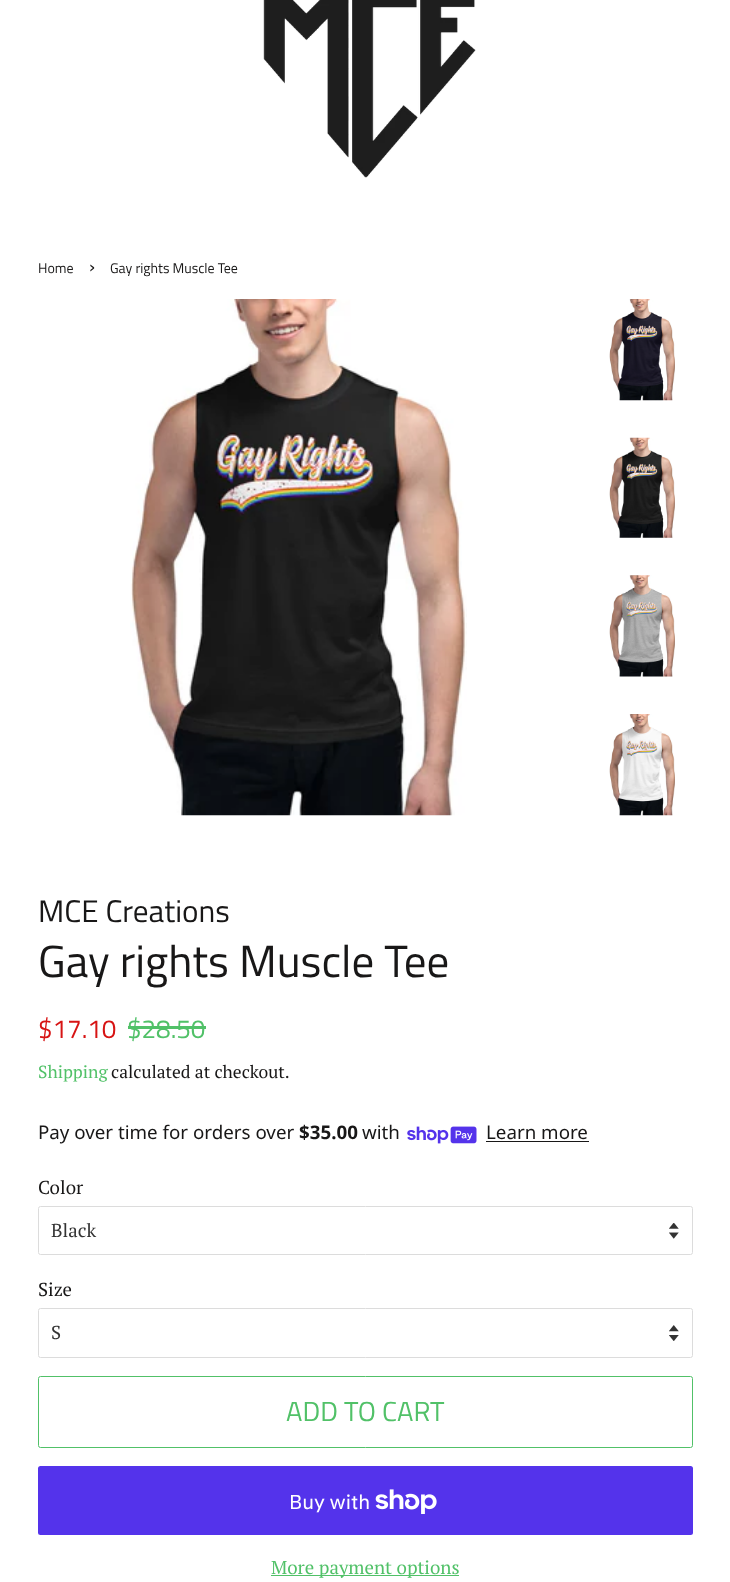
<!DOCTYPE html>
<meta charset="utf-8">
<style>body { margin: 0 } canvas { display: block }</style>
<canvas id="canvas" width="730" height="1582"></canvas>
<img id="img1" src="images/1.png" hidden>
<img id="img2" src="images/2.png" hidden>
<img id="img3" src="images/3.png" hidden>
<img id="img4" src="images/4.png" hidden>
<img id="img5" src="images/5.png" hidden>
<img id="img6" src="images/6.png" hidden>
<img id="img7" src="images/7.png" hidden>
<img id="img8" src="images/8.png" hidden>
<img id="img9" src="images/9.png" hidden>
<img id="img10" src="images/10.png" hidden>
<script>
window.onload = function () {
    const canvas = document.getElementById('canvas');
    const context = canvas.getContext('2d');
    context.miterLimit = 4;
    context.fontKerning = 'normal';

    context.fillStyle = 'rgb(255, 255, 255)';
    context.fillRect(0, 0, 730, 1582);
    context.drawImage(document.getElementById('img1'), 263, 0, 213, 178);
    context.drawImage(document.getElementById('img2'), 130, 299, 337, 517);
    context.drawImage(document.getElementById('img3'), 609, 299, 66, 102);
    context.drawImage(document.getElementById('img4'), 609, 437, 66, 101);
    context.drawImage(document.getElementById('img5'), 609, 575, 66, 102);
    context.drawImage(document.getElementById('img6'), 609, 714, 66, 102);
    context.fillStyle = 'rgb(81, 193, 104)';
    context.fillRect(128, 1026, 78, 3);
    context.drawImage(document.getElementById('img7'), 407, 1126, 70, 18);
    context.fillStyle = 'rgb(24, 23, 23)';
    context.fillRect(486, 1141, 103, 1);
    context.drawImage(document.getElementById('img8'), 669, 1223, 10, 16);
    context.beginPath();
    context.roundRect(38.5, 1206.5, 654, 48, 2);
    context.strokeStyle = 'rgb(220, 220, 220)';
    context.stroke();
    context.drawImage(document.getElementById('img9'), 669, 1325, 10, 16);
    context.beginPath();
    context.roundRect(38.5, 1308.5, 654, 49, 2);
    context.stroke();
    context.beginPath();
    context.roundRect(38.5, 1376.5, 654, 71, 2);
    context.strokeStyle = 'rgb(81, 193, 104)';
    context.stroke();
    context.fillStyle = 'rgb(84, 51, 235)';
    context.beginPath();
    context.roundRect(38, 1466, 655, 69, 2.5);
    context.fill();
    context.drawImage(document.getElementById('img10'), 375, 1489, 62, 25);
    context.fillStyle = 'rgb(81, 193, 104)';
    context.fillRect(271, 1575, 188, 1);
    context.font = '14px Titillium Web';
    context.fillStyle = 'rgb(24, 23, 23)';
    context.fillText('Home', 38, 273);
    context.font = '20px Titillium Web';
    context.fillText('›', 89, 273);
    context.font = '14px Titillium Web';
    context.fillText('Gay rights Muscle Tee', 110, 273);
    context.font = '31.25px Titillium Web';
    context.fillText('MCE Creations', 38, 922);
    context.font = '45px Titillium Web';
    context.fillText('Gay rights Muscle Tee', 38, 977);
    context.font = '26px Titillium Web';
    context.fillStyle = 'rgb(215, 20, 20)';
    context.fillText('$17.10', 38, 1038);
    context.fillStyle = 'rgb(81, 193, 104)';
    context.fillText('$28.50', 127, 1038);
    context.font = '17.5px PT Serif';
    context.fillText('Shipping', 38, 1078);
    context.fillStyle = 'rgb(24, 23, 23)';
    context.fillText('calculated at checkout.', 111, 1078);
    context.font = '18.75px Noto Sans';
    context.fillText('Pay over time for orders over', 38, 1139);
    context.font = 'bold 18.75px Noto Sans';
    context.fillText('$35.00', 299, 1139);
    context.font = '18.75px Noto Sans';
    context.fillText('with', 362, 1139);
    context.fillText('Learn more', 486, 1139);
    context.font = '18.75px PT Serif';
    context.fillText('Color', 38, 1194);
    context.fillStyle = 'rgb(51, 51, 51)';
    context.fillText('Black', 51, 1237);
    context.fillStyle = 'rgb(24, 23, 23)';
    context.fillText('Size', 38, 1296);
    context.fillStyle = 'rgb(51, 51, 51)';
    context.fillText('S', 51, 1339);
    context.font = '27.5px Titillium Web';
    context.fillStyle = 'rgb(81, 193, 104)';
    context.fillText('ADD TO CART', 286, 1421);
    context.font = '20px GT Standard';
    context.fillStyle = 'rgb(255, 255, 255)';
    context.fillText('Buy with', 289, 1509);
    context.font = '18.75px PT Serif';
    context.fillStyle = 'rgb(81, 193, 104)';
    context.fillText('More payment options', 271, 1574);
};
</script>
